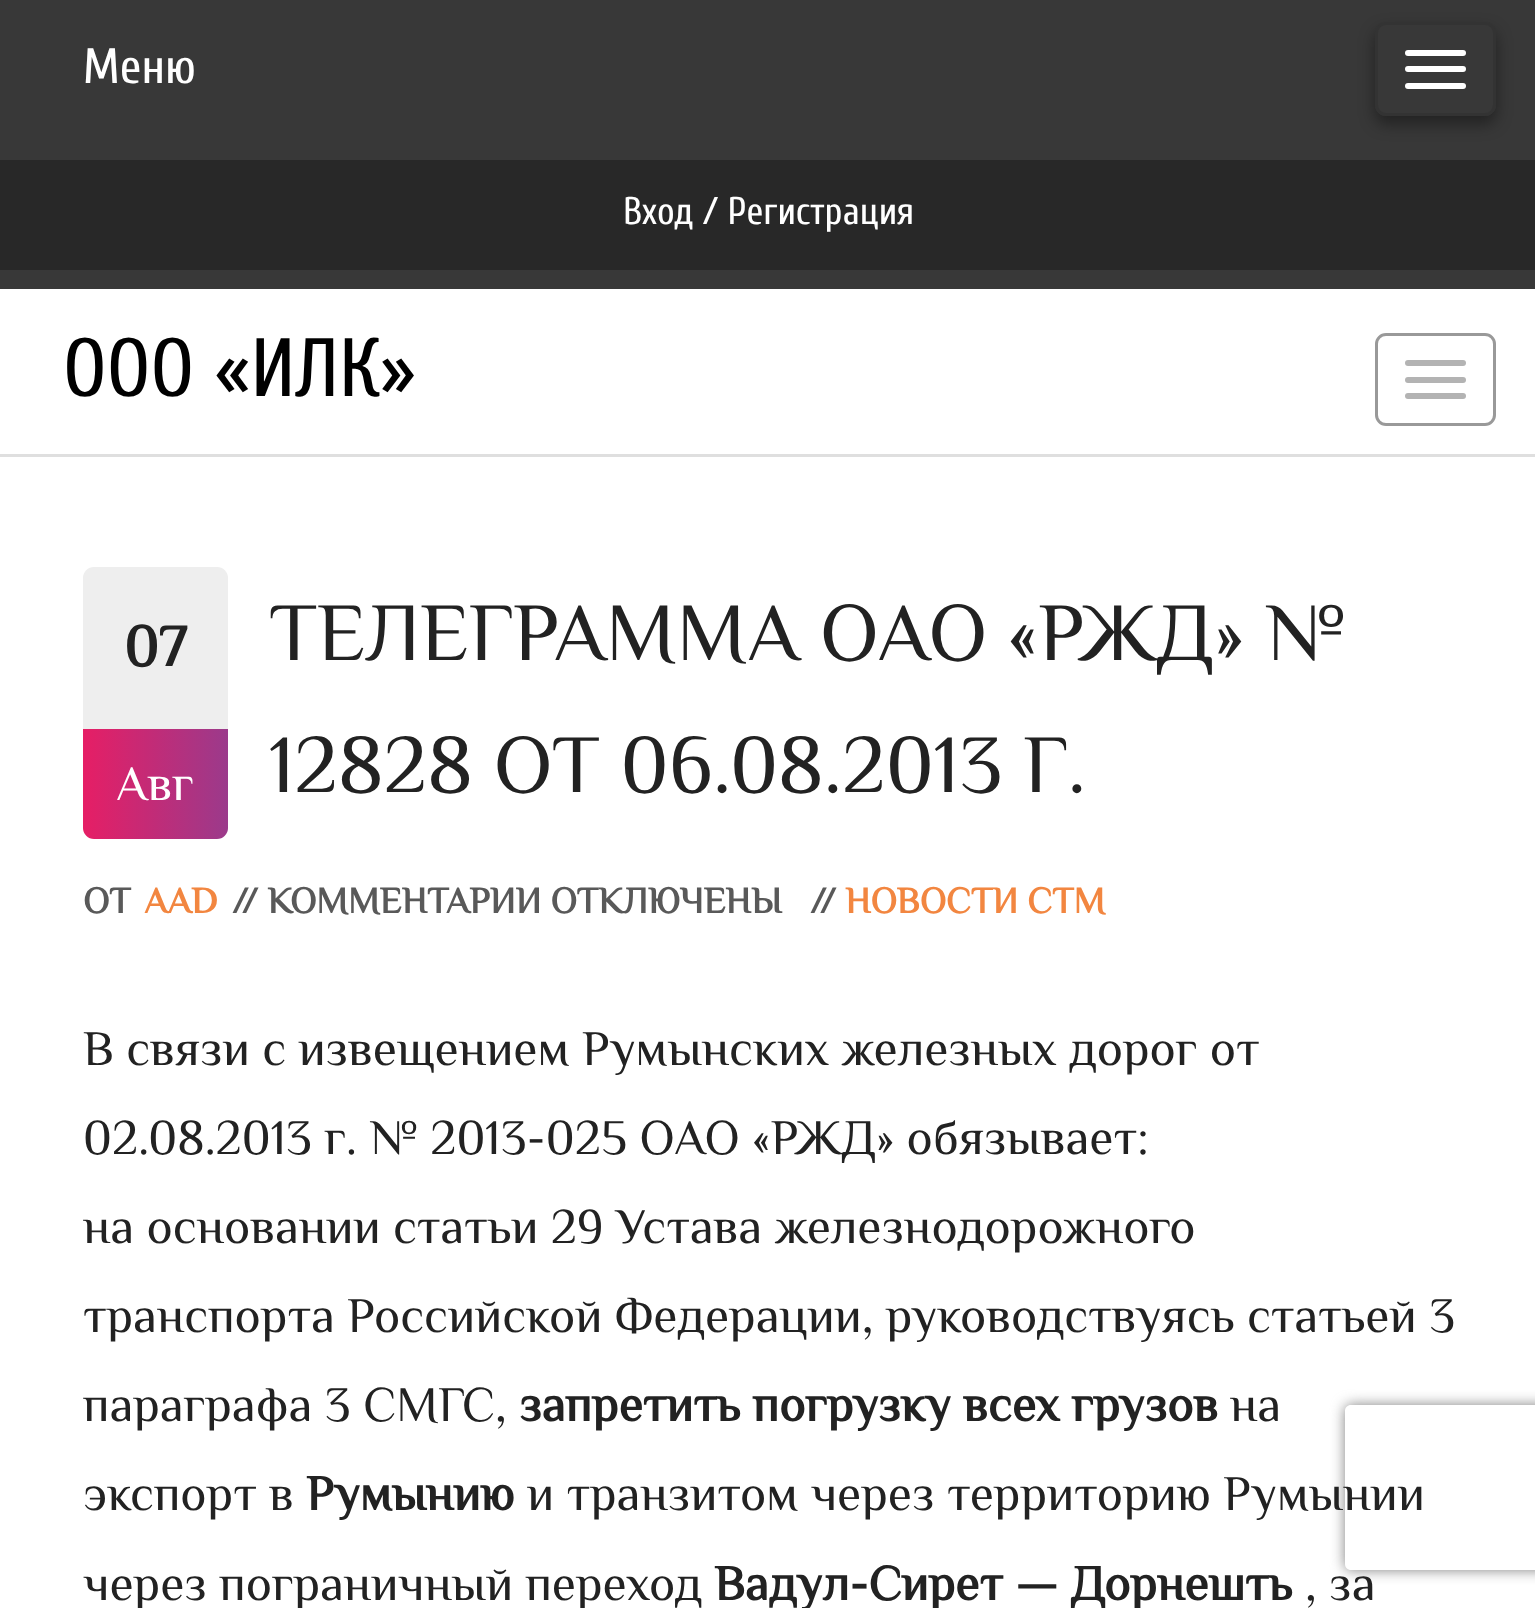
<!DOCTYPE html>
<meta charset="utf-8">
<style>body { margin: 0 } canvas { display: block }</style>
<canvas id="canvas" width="1535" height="1608"></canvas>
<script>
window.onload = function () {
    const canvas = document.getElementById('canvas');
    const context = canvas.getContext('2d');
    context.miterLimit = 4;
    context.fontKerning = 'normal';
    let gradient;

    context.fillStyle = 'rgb(255, 255, 255)';
    context.fillRect(0, 0, 1535, 1608);
    context.fillStyle = 'rgb(56, 56, 56)';
    context.fillRect(0, 0, 1535, 289);
    context.save();
    context.beginPath();
    context.moveTo(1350, 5);
    context.lineTo(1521, 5);
    context.lineTo(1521, 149);
    context.lineTo(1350, 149);
    context.closePath();
    context.moveTo(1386, 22);
    context.lineTo(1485, 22);
    context.bezierCurveTo(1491, 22, 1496, 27, 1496, 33);
    context.lineTo(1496, 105);
    context.bezierCurveTo(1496, 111, 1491, 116, 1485, 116);
    context.lineTo(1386, 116);
    context.bezierCurveTo(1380, 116, 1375, 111, 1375, 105);
    context.lineTo(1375, 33);
    context.bezierCurveTo(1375, 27, 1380, 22, 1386, 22);
    context.closePath();
    context.clip('evenodd');
    context.fillStyle = 'rgba(0, 0, 0, 0.4)';
    context.filter = 'blur(8px)';
    context.beginPath();
    context.roundRect(1375, 30, 121, 94, 11);
    context.fill();
    context.filter = 'none';
    context.restore();
    context.beginPath();
    context.roundRect(1376.5, 23.5, 118, 91, 9.5);
    context.strokeStyle = 'rgb(51, 51, 51)';
    context.lineWidth = 3;
    context.stroke();
    context.fillStyle = 'rgb(255, 255, 255)';
    context.beginPath();
    context.roundRect(1405, 50, 61, 6, 3);
    context.fill();
    context.beginPath();
    context.roundRect(1405, 66, 61, 6, 3);
    context.fill();
    context.beginPath();
    context.roundRect(1405, 83, 61, 6, 3);
    context.fill();
    context.fillStyle = 'rgb(40, 40, 40)';
    context.fillRect(0, 160, 1535, 110);
    context.fillStyle = 'rgb(223, 223, 223)';
    context.fillRect(0, 454, 1535, 3);
    context.beginPath();
    context.roundRect(1376.5, 334.5, 118, 90, 9.5);
    context.strokeStyle = 'rgb(153, 153, 153)';
    context.stroke();
    context.fillStyle = 'rgb(179, 179, 179)';
    context.beginPath();
    context.roundRect(1405, 360, 61, 6, 3);
    context.fill();
    context.beginPath();
    context.roundRect(1405, 377, 61, 6, 3);
    context.fill();
    context.beginPath();
    context.roundRect(1405, 393, 61, 6, 3);
    context.fill();
    context.fillStyle = 'rgb(238, 238, 238)';
    context.beginPath();
    context.roundRect(83, 567, 145, 162, [11, 11, 0, 0]);
    context.fill();
    gradient = context.createLinearGradient(83, 784, 228, 784);
    gradient.addColorStop(0, 'rgb(230, 30, 101)');
    gradient.addColorStop(1, 'rgb(155, 58, 139)');
    context.fillStyle = gradient;
    context.beginPath();
    context.roundRect(83, 729, 145, 110, [0, 0, 11, 11]);
    context.fill();
    context.save();
    context.beginPath();
    context.moveTo(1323, 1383);
    context.lineTo(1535, 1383);
    context.lineTo(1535, 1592);
    context.lineTo(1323, 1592);
    context.closePath();
    context.moveTo(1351, 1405);
    context.lineTo(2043, 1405);
    context.bezierCurveTo(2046.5, 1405, 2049, 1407.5, 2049, 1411);
    context.lineTo(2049, 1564);
    context.bezierCurveTo(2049, 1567.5, 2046.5, 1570, 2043, 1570);
    context.lineTo(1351, 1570);
    context.bezierCurveTo(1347.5, 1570, 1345, 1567.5, 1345, 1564);
    context.lineTo(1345, 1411);
    context.bezierCurveTo(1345, 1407.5, 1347.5, 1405, 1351, 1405);
    context.closePath();
    context.clip('evenodd');
    context.fillStyle = 'rgb(128, 128, 128)';
    context.filter = 'blur(7px)';
    context.beginPath();
    context.roundRect(1345, 1405, 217, 165, 6);
    context.fill();
    context.filter = 'none';
    context.restore();
    context.font = '49.5px Cuprum';
    context.fillStyle = 'rgb(255, 255, 255)';
    context.fillText('Меню', 83, 83);
    context.font = '38.5px Cuprum';
    context.fillText('Вход / Регистрация', 623, 224);
    context.font = '82.5px Cuprum';
    context.fillStyle = 'rgb(0, 0, 0)';
    context.fillText('ООО «ИЛК»', 63, 396);
    context.font = 'bold 59px Philosopher';
    context.fillStyle = 'rgb(34, 34, 34)';
    context.fillText('07', 124, 666);
    context.font = '49.5px Philosopher';
    context.fillStyle = 'rgb(255, 255, 255)';
    context.fillText('Авг', 116, 800);
    context.font = '82.5px Philosopher';
    context.fillStyle = 'rgb(34, 34, 34)';
    context.fillText('ТЕЛЕГРАММА ОАО «РЖД» №', 269, 660);
    context.fillText('12828 ОТ 06.08.2013 Г.', 269, 792);
    context.font = 'bold 37.1px Philosopher';
    context.fillStyle = 'rgb(89, 89, 89)';
    context.fillText('ОТ', 83, 913);
    context.fillStyle = 'rgb(242, 134, 64)';
    context.fillText('AAD', 144, 913);
    context.fillStyle = 'rgb(89, 89, 89)';
    context.fillText('// КОММЕНТАРИИ ОТКЛЮЧЕНЫ', 232, 913);
    context.fillText('//', 810, 913);
    context.fillStyle = 'rgb(242, 134, 64)';
    context.fillText('НОВОСТИ СТМ', 845, 913);
    context.font = '49.5px Philosopher';
    context.fillStyle = 'rgb(34, 34, 34)';
    context.fillText('В связи с извещением Румынских железных дорог от', 83, 1065);
    context.fillText('02.08.2013 г. № 2013-025 ОАО «РЖД» обязывает:', 83, 1154);
    context.fillText('на основании статьи 29 Устава железнодорожного', 83, 1243);
    context.fillText('транспорта Российской Федерации, руководствуясь статьей 3', 83, 1332);
    context.fillText('параграфа 3 СМГС,', 83, 1421);
    context.font = 'bold 49.5px Philosopher';
    context.fillText('запретить погрузку всех грузов', 519, 1421);
    context.font = '49.5px Philosopher';
    context.fillText('на', 1230, 1421);
    context.fillText('экспорт в', 83, 1510);
    context.font = 'bold 49.5px Philosopher';
    context.fillText('Румынию', 306, 1510);
    context.font = '49.5px Philosopher';
    context.fillText('и транзитом через территорию Румынии', 527, 1510);
    context.fillText('через пограничный переход', 83, 1600);
    context.font = 'bold 49.5px Philosopher';
    context.fillText('Вадул-Сирет — Дорнешть', 714, 1600);
    context.font = '49.5px Philosopher';
    context.fillText(', за', 1305, 1600);
};
</script>
